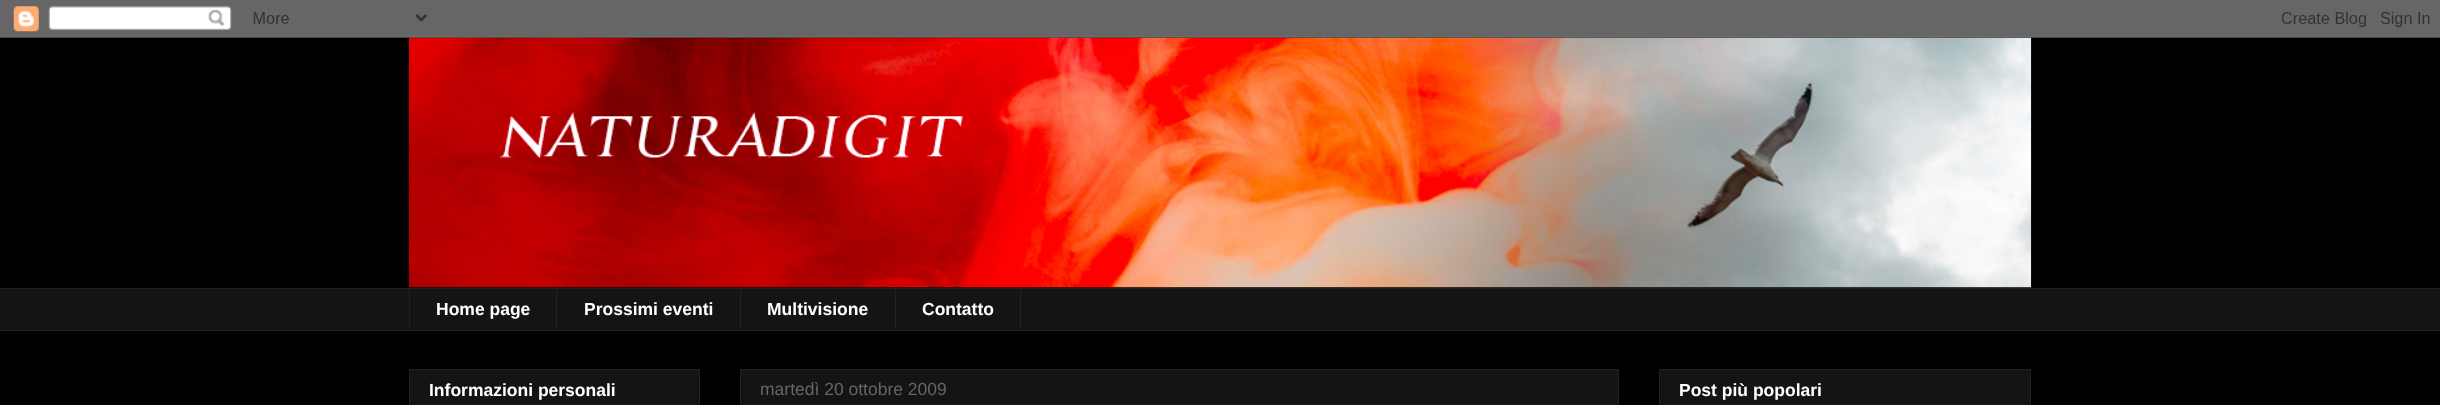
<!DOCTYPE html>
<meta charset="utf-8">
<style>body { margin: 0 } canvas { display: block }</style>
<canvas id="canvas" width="2440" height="405"></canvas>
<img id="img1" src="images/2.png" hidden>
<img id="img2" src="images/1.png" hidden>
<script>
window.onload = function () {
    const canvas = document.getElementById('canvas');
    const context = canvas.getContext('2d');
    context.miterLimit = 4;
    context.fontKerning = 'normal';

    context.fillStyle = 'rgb(0, 0, 0)';
    context.fillRect(0, 0, 2440, 405);
    context.drawImage(document.getElementById('img1'), 408, 37, 1624, 251);
    context.drawImage(document.getElementById('img2'), 0, 0, 2440, 38);
    context.fillStyle = 'rgb(20, 20, 20)';
    context.fillRect(0, 289, 2440, 41);
    context.fillStyle = 'rgb(34, 34, 34)';
    context.fillRect(0, 288, 2440, 1);
    context.fillRect(409, 288, 1, 43);
    context.fillRect(556, 288, 1, 43);
    context.fillRect(740, 288, 1, 43);
    context.strokeStyle = 'rgb(34, 34, 34)';
    context.strokeRect(895.5, 288.5, 125, 42);
    context.fillRect(0, 330, 2440, 1);
    context.fillStyle = 'rgb(20, 20, 20)';
    context.beginPath();
    context.rect(409.5, 369.5, 290, 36);
    context.fill();
    context.stroke();
    context.beginPath();
    context.rect(740.5, 369.5, 878, 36);
    context.fill();
    context.stroke();
    context.beginPath();
    context.rect(1659.5, 369.5, 371, 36);
    context.fill();
    context.stroke();
    context.font = 'bold 17.5px Liberation Sans';
    context.fillStyle = 'rgb(255, 255, 255)';
    context.fillText('Home page', 436, 315);
    context.fillText('Prossimi eventi', 584, 315);
    context.fillText('Multivisione', 767, 315);
    context.fillText('Contatto', 922, 315);
    context.fillText('Informazioni personali', 429, 396);
    context.font = '17.5px Liberation Sans';
    context.fillStyle = 'rgb(102, 102, 102)';
    context.fillText('martedì 20 ottobre 2009', 760, 395);
    context.font = 'bold 17.5px Liberation Sans';
    context.fillStyle = 'rgb(255, 255, 255)';
    context.fillText('Post più popolari', 1679, 396);
};
</script>
